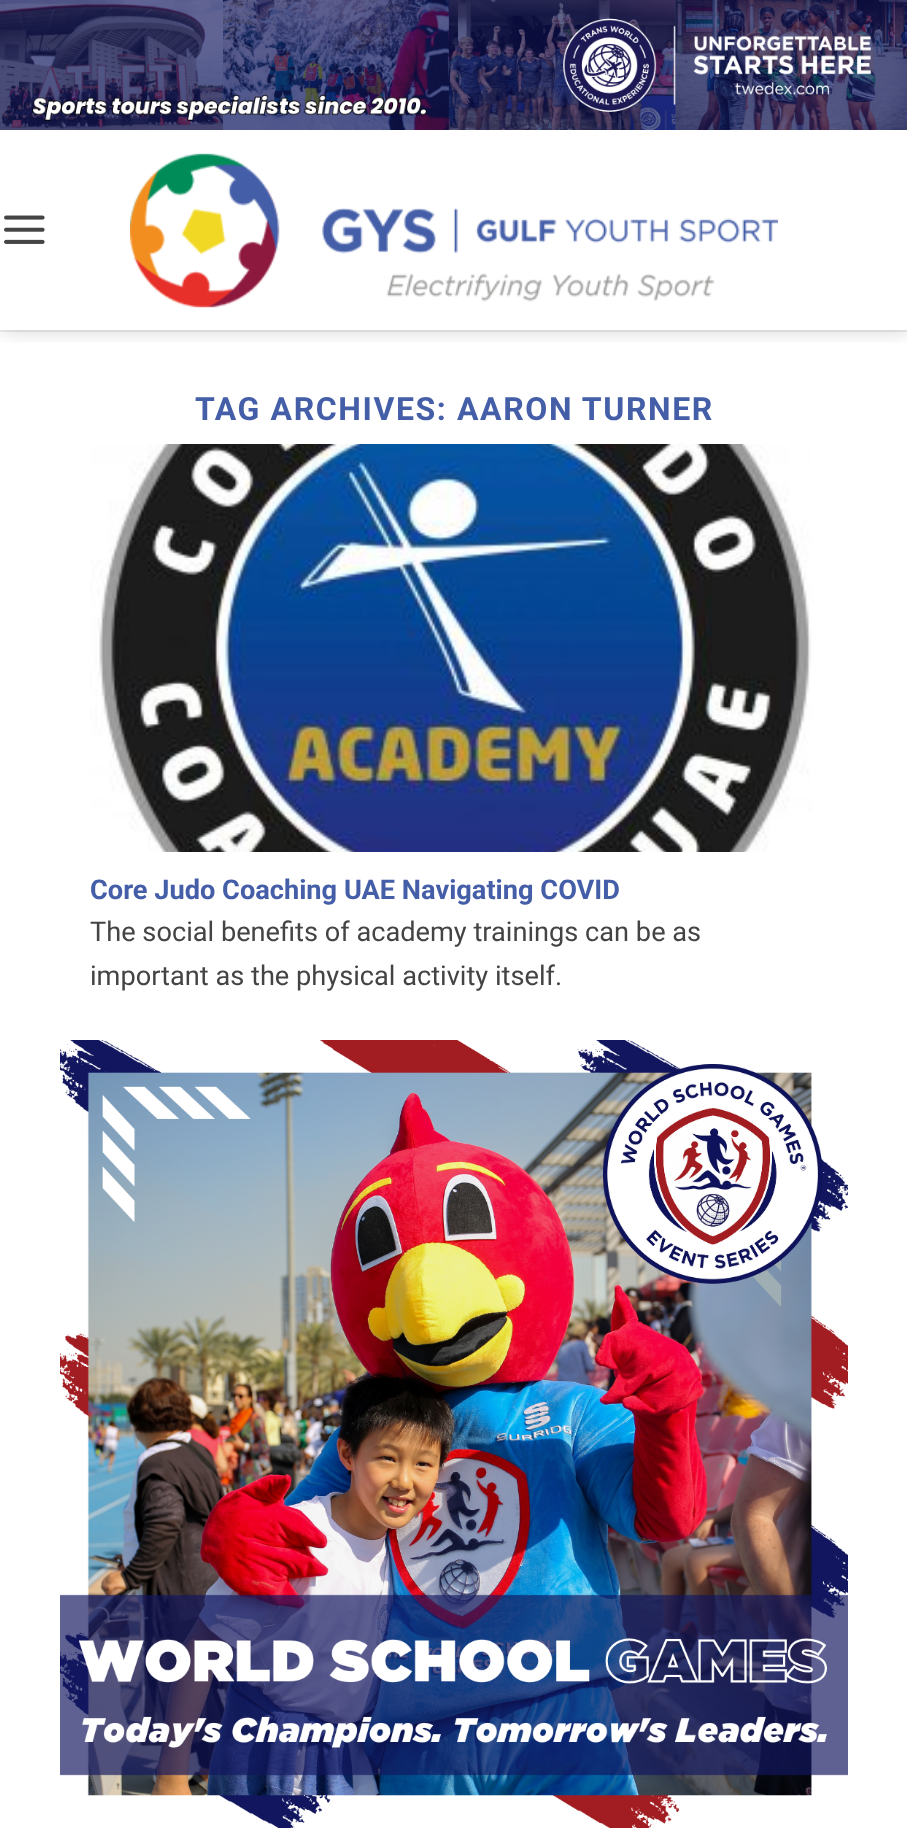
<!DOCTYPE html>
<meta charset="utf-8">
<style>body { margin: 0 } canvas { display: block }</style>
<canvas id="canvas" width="907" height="1833"></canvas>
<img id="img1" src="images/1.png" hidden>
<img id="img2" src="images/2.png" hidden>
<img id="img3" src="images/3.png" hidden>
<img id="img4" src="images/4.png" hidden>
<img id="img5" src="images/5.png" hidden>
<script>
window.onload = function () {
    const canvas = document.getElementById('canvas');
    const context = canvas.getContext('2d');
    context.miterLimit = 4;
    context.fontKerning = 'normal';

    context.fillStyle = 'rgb(255, 255, 255)';
    context.fillRect(0, 0, 907, 1833);
    context.save();
    context.beginPath();
    context.rect(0, 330, 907, 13);
    context.clip();
    context.fillStyle = 'rgba(0, 0, 0, 0.15)';
    context.filter = 'blur(10px)';
    context.beginPath();
    context.rect(2, 2, 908, 330);
    context.fill();
    context.filter = 'none';
    context.restore();
    context.drawImage(document.getElementById('img1'), 0, 0, 907, 130);
    context.drawImage(document.getElementById('img2'), 4, 215, 41, 29);
    context.drawImage(document.getElementById('img3'), 130, 153, 648, 155);
    context.fillStyle = 'rgba(68, 68, 68, 0.1)';
    context.fillRect(0, 330, 907, 2);
    context.drawImage(document.getElementById('img4'), 90, 444, 722, 408);
    context.drawImage(document.getElementById('img5'), 60, 1040, 788, 788);
    context.letterSpacing = '1.6px';
    context.font = 'bold 32px Roboto';
    context.fillStyle = 'rgb(68, 94, 168)';
    context.fillText('TAG ARCHIVES: AARON TURNER', 195, 420);
    context.letterSpacing = '0px';
    context.font = 'bold 27.2px Roboto';
    context.fillText('Core Judo Coaching UAE Navigating COVID', 90, 899);
    context.font = '27.2px Roboto';
    context.fillStyle = 'rgb(68, 68, 68)';
    context.fillText('The social benefits of academy trainings can be as', 90, 941);
    context.fillText('important as the physical activity itself.', 90, 985);
};
</script>
